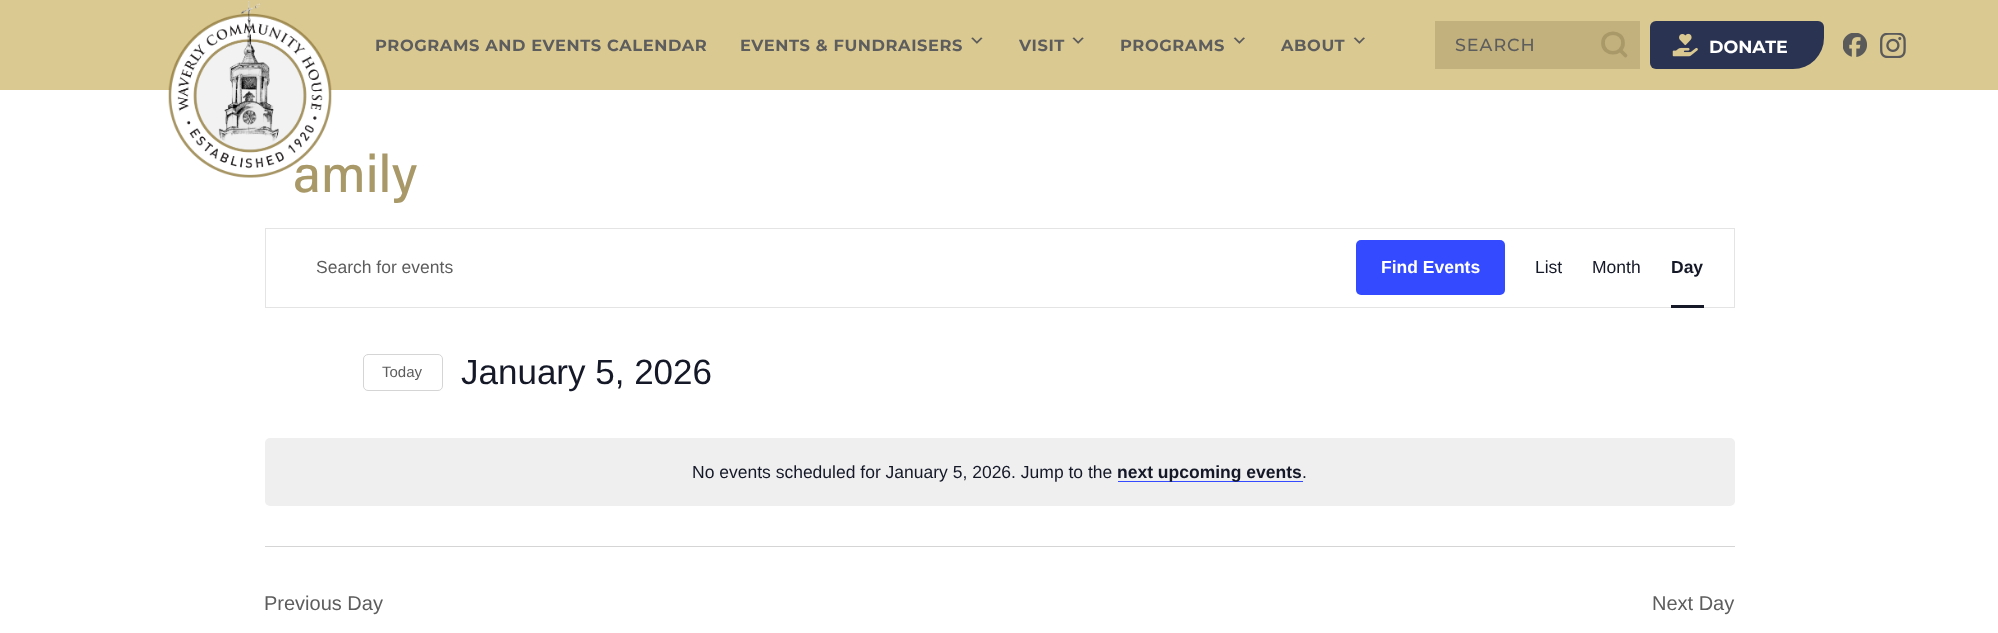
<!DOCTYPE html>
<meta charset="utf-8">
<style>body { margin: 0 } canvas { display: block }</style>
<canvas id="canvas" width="1998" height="633"></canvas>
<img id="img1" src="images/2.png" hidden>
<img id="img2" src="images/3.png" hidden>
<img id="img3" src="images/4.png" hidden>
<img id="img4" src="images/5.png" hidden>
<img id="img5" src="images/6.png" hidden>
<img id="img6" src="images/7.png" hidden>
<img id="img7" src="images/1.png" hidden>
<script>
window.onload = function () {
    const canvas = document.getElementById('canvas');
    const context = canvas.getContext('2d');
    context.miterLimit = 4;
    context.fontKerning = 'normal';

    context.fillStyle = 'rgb(255, 255, 255)';
    context.fillRect(0, 0, 1998, 633);
    context.fillStyle = 'rgb(219, 201, 146)';
    context.fillRect(0, 0, 1998, 90);
    context.drawImage(document.getElementById('img1'), 971, 37, 12, 7);
    context.drawImage(document.getElementById('img2'), 1072, 37, 12, 7);
    context.drawImage(document.getElementById('img3'), 1233, 37, 12, 7);
    context.drawImage(document.getElementById('img3'), 1353, 37, 12, 7);
    context.fillStyle = 'rgb(194, 176, 125)';
    context.fillRect(1435, 21, 205, 48);
    context.beginPath();
    context.moveTo(1623, 43);
    context.bezierCurveTo(1623, 56, 1603, 56, 1603, 43);
    context.bezierCurveTo(1603, 30, 1623, 30, 1623, 43);
    context.closePath();
    context.moveTo(1625.5, 55.5);
    context.lineTo(1620, 50);
    context.strokeStyle = 'rgb(169, 153, 105)';
    context.lineWidth = 3.7;
    context.lineCap = 'round';
    context.lineJoin = 'round';
    context.stroke();
    context.fillStyle = 'rgb(42, 51, 82)';
    context.beginPath();
    context.roundRect(1650, 21, 174, 48, [6, 6, 31, 6]);
    context.fill();
    context.drawImage(document.getElementById('img4'), 1672, 33, 26, 24);
    context.drawImage(document.getElementById('img5'), 1843, 33, 24, 24);
    context.drawImage(document.getElementById('img6'), 1880, 33, 26, 25);
    context.strokeStyle = 'rgb(228, 228, 228)';
    context.lineWidth = 1;
    context.lineJoin = 'miter';
    context.strokeRect(265.5, 228.5, 1469, 79);
    context.fillStyle = 'rgb(51, 74, 255)';
    context.beginPath();
    context.roundRect(1356, 240, 149, 55, 5);
    context.fill();
    context.fillStyle = 'rgb(20, 24, 39)';
    context.fillRect(1671, 305, 33, 3);
    context.beginPath();
    context.roundRect(363.5, 354.5, 79, 36, 4.5);
    context.strokeStyle = 'rgb(213, 213, 213)';
    context.stroke();
    context.fillStyle = 'rgb(239, 239, 240)';
    context.beginPath();
    context.roundRect(265, 438, 1470, 68, 5);
    context.fill();
    context.fillStyle = 'rgb(51, 74, 255)';
    context.fillRect(1118, 481, 185, 1);
    context.fillStyle = 'rgb(213, 213, 213)';
    context.fillRect(265, 546, 1470, 1);
    context.letterSpacing = '0.6px';
    context.font = 'bold 16.25px Montserrat';
    context.fillStyle = 'rgb(93, 93, 93)';
    context.fillText('PROGRAMS AND EVENTS CALENDAR', 375, 51);
    context.fillText('EVENTS & FUNDRAISERS', 740, 51);
    context.fillText('VISIT', 1019, 51);
    context.fillText('PROGRAMS', 1120, 51);
    context.fillText('ABOUT', 1281, 51);
    context.letterSpacing = '1px';
    context.font = '500 17.5px Montserrat';
    context.fillText('SEARCH', 1455, 51);
    context.letterSpacing = '0px';
    context.font = 'bold 17.5px Montserrat';
    context.fillStyle = 'rgb(255, 255, 255)';
    context.fillText('DONATE', 1709, 53);
    context.font = '500 52.5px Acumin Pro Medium';
    context.fillStyle = 'rgb(169, 153, 105)';
    context.fillText('amily', 293, 192);
    context.drawImage(document.getElementById('img7'), 168, 1, 164, 177);
    context.font = '17.5px Liberation Sans';
    context.fillStyle = 'rgb(93, 93, 93)';
    context.fillText('Search for events', 316, 273);
    context.font = 'bold 17.5px Liberation Sans';
    context.fillStyle = 'rgb(255, 255, 255)';
    context.fillText('Find Events', 1381, 273);
    context.font = '17.5px Liberation Sans';
    context.fillStyle = 'rgb(20, 24, 39)';
    context.fillText('List', 1535, 273);
    context.fillText('Month', 1592, 273);
    context.font = 'bold 17.5px Liberation Sans';
    context.fillText('Day', 1671, 273);
    context.font = '15px Liberation Sans';
    context.fillStyle = 'rgb(93, 93, 93)';
    context.fillText('Today', 382, 377);
    context.font = '35px Liberation Sans';
    context.fillStyle = 'rgb(20, 24, 39)';
    context.fillText('January 5, 2026', 461, 384);
    context.font = '17.5px Liberation Sans';
    context.fillText('No events scheduled for January 5, 2026. Jump to the', 692, 478);
    context.font = 'bold 17.5px Liberation Sans';
    context.fillText('next upcoming events', 1117, 478);
    context.font = '17.5px Liberation Sans';
    context.fillText('.', 1302, 478);
    context.font = '20px Liberation Sans';
    context.fillStyle = 'rgb(93, 93, 93)';
    context.fillText('Previous Day', 264, 610);
    context.fillText('Next Day', 1652, 610);
};
</script>
